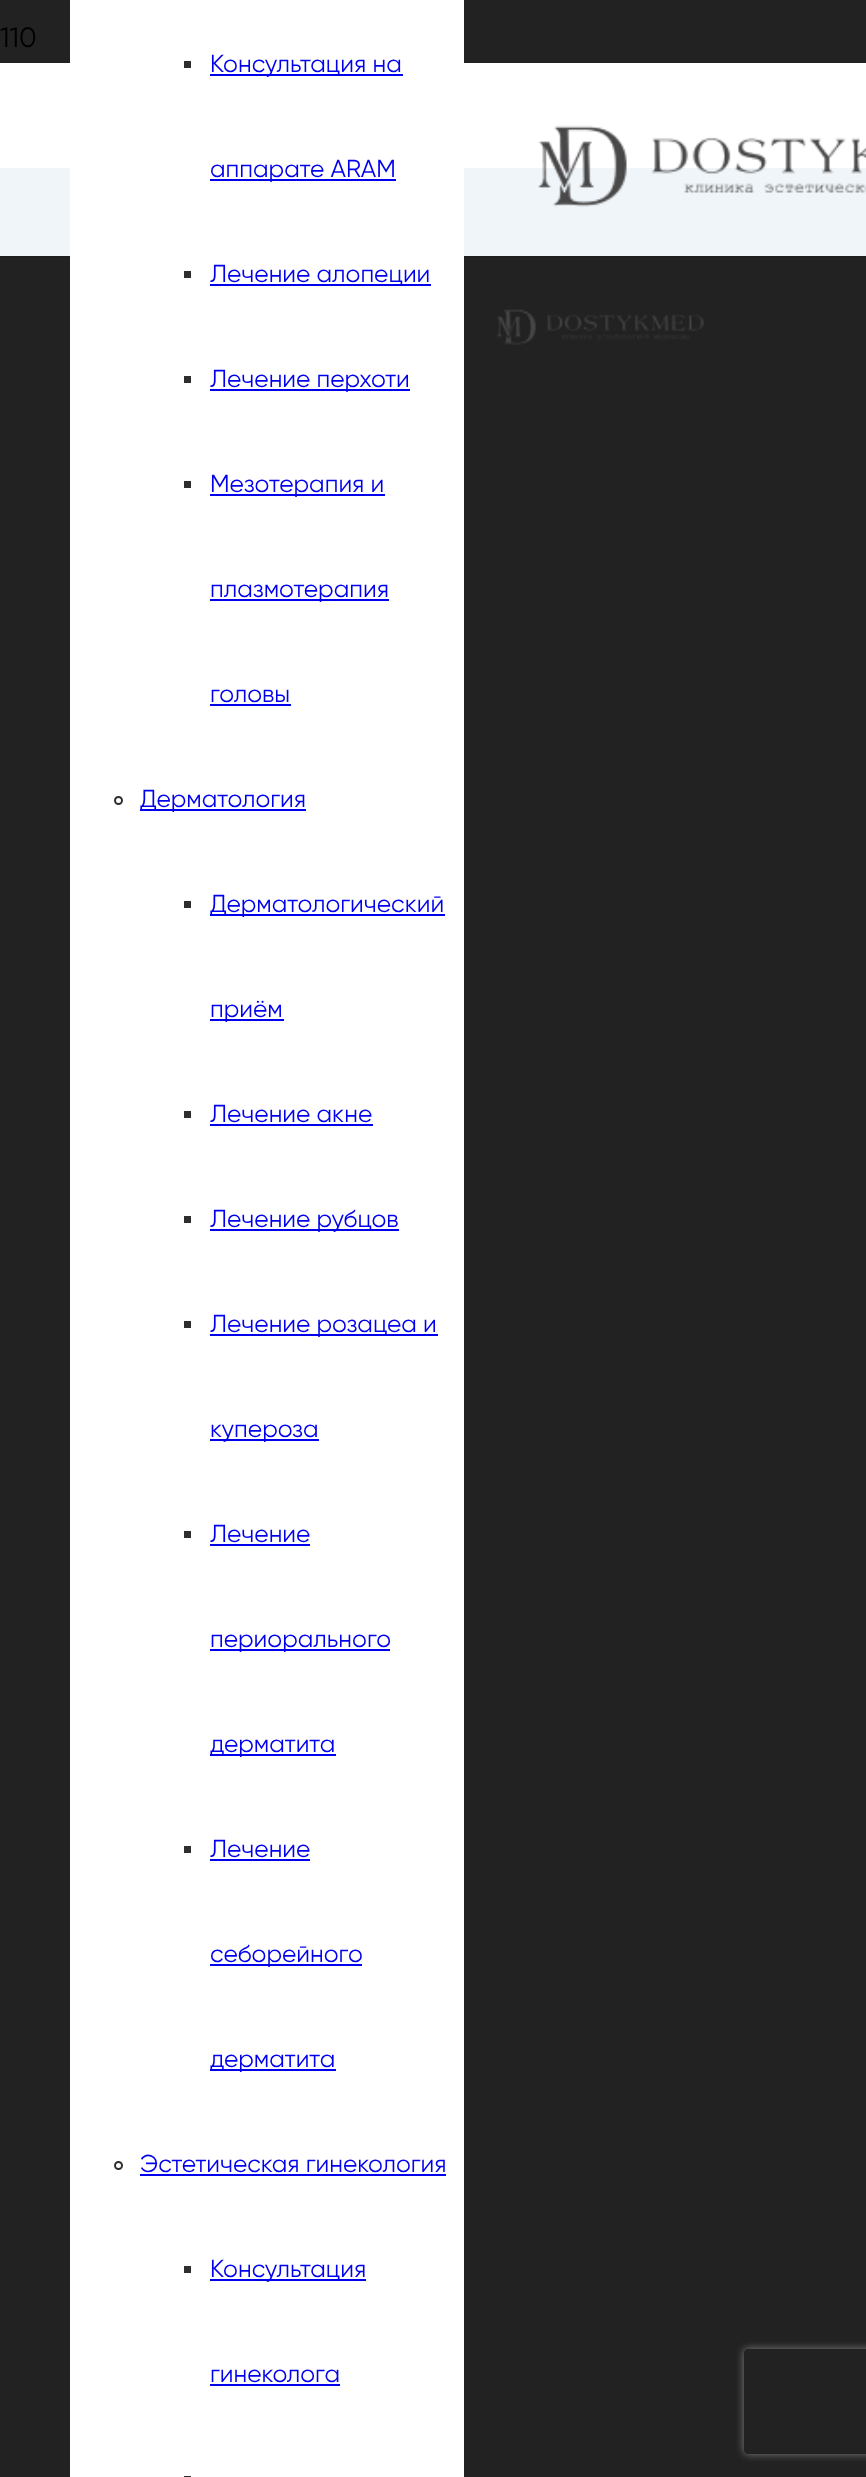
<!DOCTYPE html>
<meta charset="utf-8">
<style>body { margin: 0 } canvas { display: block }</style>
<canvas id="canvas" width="866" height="2477"></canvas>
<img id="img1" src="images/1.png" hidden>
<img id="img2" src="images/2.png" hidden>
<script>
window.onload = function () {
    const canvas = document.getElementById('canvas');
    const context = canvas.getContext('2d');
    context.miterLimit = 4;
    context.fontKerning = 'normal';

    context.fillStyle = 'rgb(34, 34, 34)';
    context.fillRect(0, 0, 866, 2477);
    context.fillStyle = 'rgb(255, 255, 255)';
    context.fillRect(0, 63, 866, 105);
    context.fillStyle = 'rgb(31, 31, 31)';
    context.fillRect(0, 256, 866, 1);
    context.fillStyle = 'rgb(240, 245, 249)';
    context.fillRect(0, 168, 866, 88);
    context.fillStyle = 'rgb(255, 255, 255)';
    context.fillRect(70, 0, 394, 2477);
    context.fillStyle = 'rgb(45, 46, 45)';
    context.fillRect(184, 61, 7, 7);
    context.fillStyle = 'rgb(0, 0, 238)';
    context.fillRect(210, 74, 193, 2);
    context.fillRect(210, 179, 186, 2);
    context.fillStyle = 'rgb(45, 46, 45)';
    context.fillRect(184, 271, 7, 7);
    context.fillStyle = 'rgb(0, 0, 238)';
    context.fillRect(210, 284, 221, 2);
    context.fillStyle = 'rgb(45, 46, 45)';
    context.fillRect(184, 376, 7, 7);
    context.fillStyle = 'rgb(0, 0, 238)';
    context.fillRect(210, 389, 200, 2);
    context.fillStyle = 'rgb(45, 46, 45)';
    context.fillRect(184, 481, 7, 7);
    context.fillStyle = 'rgb(0, 0, 238)';
    context.fillRect(210, 494, 175, 2);
    context.fillRect(210, 599, 179, 2);
    context.fillRect(210, 704, 81, 2);
    context.beginPath();
    context.arc(118.5, 800.5, 3.5, 0, 2 * Math.PI);
    context.strokeStyle = 'rgb(45, 46, 45)';
    context.lineWidth = 2;
    context.stroke();
    context.fillRect(140, 809, 166, 2);
    context.fillStyle = 'rgb(45, 46, 45)';
    context.fillRect(184, 901, 7, 7);
    context.fillStyle = 'rgb(0, 0, 238)';
    context.fillRect(210, 914, 235, 2);
    context.fillRect(210, 1019, 74, 2);
    context.fillStyle = 'rgb(45, 46, 45)';
    context.fillRect(184, 1111, 7, 7);
    context.fillStyle = 'rgb(0, 0, 238)';
    context.fillRect(210, 1124, 163, 2);
    context.fillStyle = 'rgb(45, 46, 45)';
    context.fillRect(184, 1216, 7, 7);
    context.fillStyle = 'rgb(0, 0, 238)';
    context.fillRect(210, 1229, 189, 2);
    context.fillStyle = 'rgb(45, 46, 45)';
    context.fillRect(184, 1321, 7, 7);
    context.fillStyle = 'rgb(0, 0, 238)';
    context.fillRect(210, 1334, 228, 2);
    context.fillRect(210, 1439, 109, 2);
    context.fillStyle = 'rgb(45, 46, 45)';
    context.fillRect(184, 1531, 7, 7);
    context.fillStyle = 'rgb(0, 0, 238)';
    context.fillRect(210, 1544, 100, 2);
    context.fillRect(210, 1649, 180, 2);
    context.fillRect(210, 1754, 126, 2);
    context.fillStyle = 'rgb(45, 46, 45)';
    context.fillRect(184, 1846, 7, 7);
    context.fillStyle = 'rgb(0, 0, 238)';
    context.fillRect(210, 1859, 100, 2);
    context.fillRect(210, 1964, 152, 2);
    context.fillRect(210, 2069, 126, 2);
    context.beginPath();
    context.arc(118.5, 2165.5, 3.5, 0, 2 * Math.PI);
    context.stroke();
    context.fillRect(140, 2174, 306, 2);
    context.fillStyle = 'rgb(45, 46, 45)';
    context.fillRect(184, 2266, 7, 7);
    context.fillStyle = 'rgb(0, 0, 238)';
    context.fillRect(210, 2279, 156, 2);
    context.fillRect(210, 2384, 130, 2);
    context.fillStyle = 'rgb(45, 46, 45)';
    context.fillRect(184, 2476, 7, 1);
    context.drawImage(document.getElementById('img1'), 538, 125, 328, 82);
    context.drawImage(document.getElementById('img2'), 497, 309, 207, 36);
    context.save();
    context.beginPath();
    context.moveTo(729, 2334);
    context.lineTo(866, 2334);
    context.lineTo(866, 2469);
    context.lineTo(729, 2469);
    context.closePath();
    context.moveTo(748, 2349);
    context.lineTo(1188, 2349);
    context.bezierCurveTo(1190, 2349, 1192, 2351, 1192, 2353);
    context.lineTo(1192, 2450);
    context.bezierCurveTo(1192, 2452, 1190, 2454, 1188, 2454);
    context.lineTo(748, 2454);
    context.bezierCurveTo(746, 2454, 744, 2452, 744, 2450);
    context.lineTo(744, 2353);
    context.bezierCurveTo(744, 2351, 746, 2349, 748, 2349);
    context.closePath();
    context.clip('evenodd');
    context.fillStyle = 'rgb(128, 128, 128)';
    context.filter = 'blur(4.5px)';
    context.beginPath();
    context.roundRect(744, 2349, 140, 105, 4);
    context.fill();
    context.filter = 'none';
    context.restore();
    context.font = '28px Gilroy';
    context.fillStyle = 'rgb(0, 0, 0)';
    context.fillText('110', 0, 47);
    context.font = '24.5px Gilroy';
    context.fillStyle = 'rgb(0, 0, 238)';
    context.fillText('Консультация на', 210, 72);
    context.fillText('аппарате ARAM', 210, 177);
    context.fillText('Лечение алопеции', 210, 282);
    context.fillText('Лечение перхоти', 210, 387);
    context.fillText('Мезотерапия и', 210, 492);
    context.fillText('плазмотерапия', 210, 597);
    context.fillText('головы', 210, 702);
    context.fillText('Дерматология', 140, 807);
    context.fillText('Дерматологический', 210, 912);
    context.fillText('приём', 210, 1017);
    context.fillText('Лечение акне', 210, 1122);
    context.fillText('Лечение рубцов', 210, 1227);
    context.fillText('Лечение розацеа и', 210, 1332);
    context.fillText('купероза', 210, 1437);
    context.fillText('Лечение', 210, 1542);
    context.fillText('периорального', 210, 1647);
    context.fillText('дерматита', 210, 1752);
    context.fillText('Лечение', 210, 1857);
    context.fillText('себорейного', 210, 1962);
    context.fillText('дерматита', 210, 2067);
    context.fillText('Эстетическая гинекология', 140, 2172);
    context.fillText('Консультация', 210, 2277);
    context.fillText('гинеколога', 210, 2382);
};
</script>
